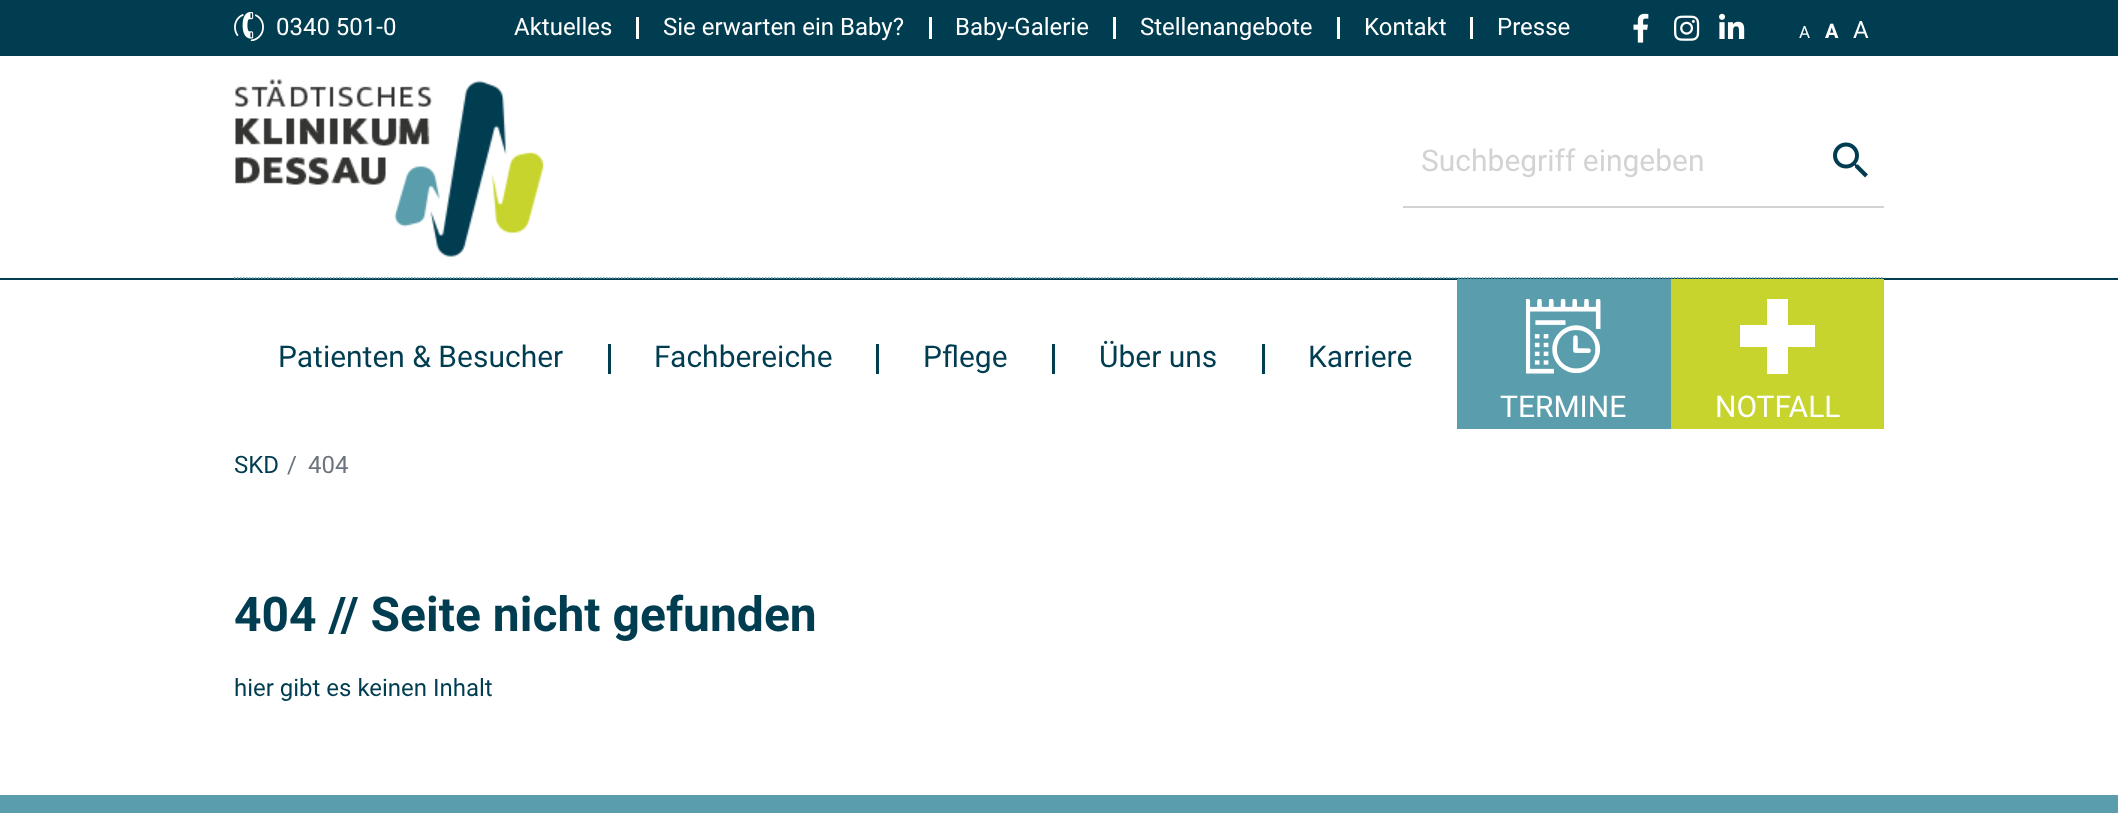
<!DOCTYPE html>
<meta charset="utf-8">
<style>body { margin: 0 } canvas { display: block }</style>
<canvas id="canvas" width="2118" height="813"></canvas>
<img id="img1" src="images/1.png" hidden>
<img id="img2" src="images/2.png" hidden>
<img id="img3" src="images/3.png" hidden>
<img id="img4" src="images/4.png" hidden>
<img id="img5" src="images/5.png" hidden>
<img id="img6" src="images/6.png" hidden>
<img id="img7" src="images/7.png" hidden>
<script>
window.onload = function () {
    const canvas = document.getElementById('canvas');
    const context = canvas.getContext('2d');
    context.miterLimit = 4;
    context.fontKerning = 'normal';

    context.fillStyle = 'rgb(255, 255, 255)';
    context.fillRect(0, 0, 2118, 813);
    context.fillStyle = 'rgb(0, 61, 81)';
    context.fillRect(0, 278, 2118, 2);
    context.fillRect(0, 0, 2118, 56);
    context.drawImage(document.getElementById('img1'), 234, 12, 30, 29);
    context.fillStyle = 'rgb(255, 255, 255)';
    context.fillRect(636, 17, 3, 22);
    context.fillRect(929, 17, 3, 22);
    context.fillRect(1113, 17, 3, 22);
    context.fillRect(1337, 17, 3, 22);
    context.fillRect(1470, 17, 3, 22);
    context.drawImage(document.getElementById('img2'), 1633, 13, 16, 30);
    context.drawImage(document.getElementById('img3'), 1674, 15, 26, 26);
    context.drawImage(document.getElementById('img4'), 1719, 13, 26, 26);
    context.drawImage(document.getElementById('img5'), 235, 79, 309, 178);
    context.fillStyle = 'rgb(211, 211, 211)';
    context.fillRect(1403, 206, 481, 2);
    context.drawImage(document.getElementById('img6'), 1833, 142, 35, 36);
    context.beginPath();
    context.moveTo(234, 278);
    context.lineTo(1884, 278);
    context.strokeStyle = 'rgb(90, 157, 172)';
    context.lineWidth = 1.5;
    context.setLineDash([1.5, 1.5]);
    context.stroke();
    context.fillStyle = 'rgb(0, 61, 81)';
    context.fillRect(608, 344, 3, 30);
    context.fillRect(876, 344, 3, 30);
    context.fillRect(1052, 344, 3, 30);
    context.fillRect(1262, 344, 3, 30);
    context.fillStyle = 'rgb(90, 157, 172)';
    context.fillRect(1457, 279, 214, 150);
    context.drawImage(document.getElementById('img7'), 1526, 299, 75, 75);
    context.fillStyle = 'rgb(199, 212, 45)';
    context.fillRect(1671, 279, 213, 150);
    context.save();
    context.beginPath();
    context.rect(1740, 299, 75, 75);
    context.clip();
    context.fillStyle = 'rgb(255, 255, 255)';
    context.beginPath();
    context.moveTo(1767, 325);
    context.lineTo(1740, 325);
    context.lineTo(1740, 347);
    context.lineTo(1767, 347);
    context.lineTo(1767, 374);
    context.lineTo(1788, 374);
    context.lineTo(1788, 347);
    context.lineTo(1815, 347);
    context.lineTo(1815, 325);
    context.lineTo(1788, 325);
    context.lineTo(1788, 298);
    context.lineTo(1767, 298);
    context.closePath();
    context.fill();
    context.restore();
    context.fillStyle = 'rgb(90, 157, 172)';
    context.fillRect(0, 795, 2118, 18);
    context.font = '24px Roboto';
    context.fillStyle = 'rgb(255, 255, 255)';
    context.fillText('0340 501-0', 276, 35);
    context.fillText('Aktuelles', 514, 35);
    context.fillText('Sie erwarten ein Baby?', 663, 35);
    context.fillText('Baby-Galerie', 955, 35);
    context.fillText('Stellenangebote', 1140, 35);
    context.fillText('Kontakt', 1364, 35);
    context.fillText('Presse', 1497, 35);
    context.font = '17px Roboto';
    context.fillText('A', 1799, 38);
    context.font = 'bold 20px Roboto';
    context.fillText('A', 1825, 38);
    context.font = '24px Roboto';
    context.fillText('A', 1853, 38);
    context.font = '30px Roboto';
    context.fillStyle = 'rgb(211, 211, 211)';
    context.fillText('Suchbegriff eingeben', 1421, 171);
    context.fillStyle = 'rgb(0, 61, 81)';
    context.fillText('Patienten & Besucher', 278, 367);
    context.fillText('Fachbereiche', 654, 367);
    context.fillText('Pflege', 923, 367);
    context.fillText('Über uns', 1099, 367);
    context.fillText('Karriere', 1308, 367);
    context.fillStyle = 'rgb(255, 255, 255)';
    context.fillText('TERMINE', 1500, 417);
    context.fillText('NOTFALL', 1715, 417);
    context.font = '24px Roboto';
    context.fillStyle = 'rgb(0, 61, 81)';
    context.fillText('SKD', 234, 473);
    context.fillStyle = 'rgb(108, 117, 125)';
    context.fillText('/', 287, 473);
    context.fillText('404', 308, 473);
    context.font = 'bold 48px Roboto';
    context.fillStyle = 'rgb(0, 61, 81)';
    context.fillText('404 // Seite nicht gefunden', 234, 631);
    context.font = '24px Roboto';
    context.fillText('hier gibt es keinen Inhalt', 234, 696);
};
</script>
